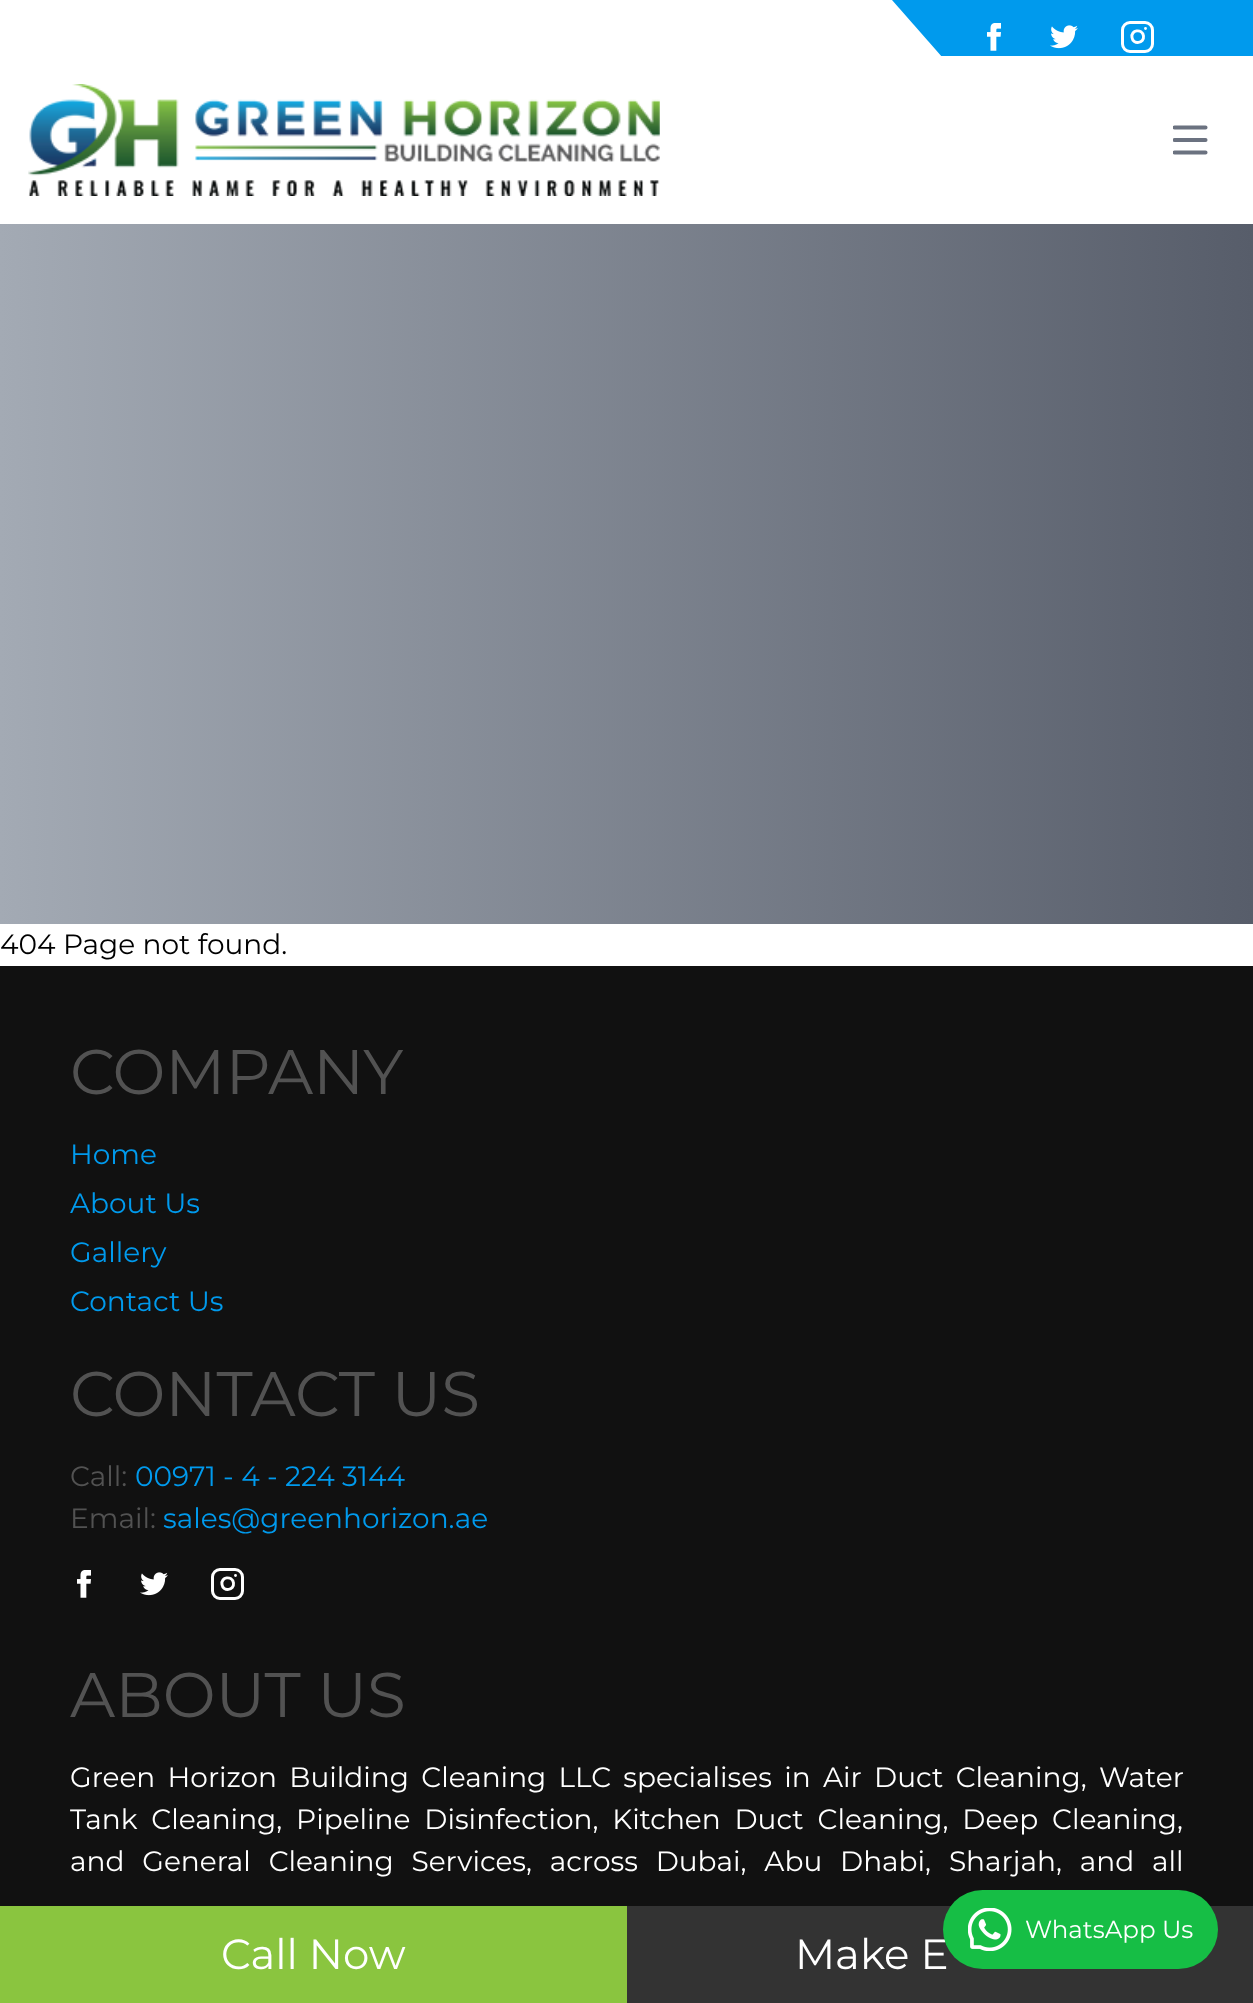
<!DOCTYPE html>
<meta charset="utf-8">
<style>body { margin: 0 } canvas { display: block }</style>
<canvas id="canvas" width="1253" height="2003"></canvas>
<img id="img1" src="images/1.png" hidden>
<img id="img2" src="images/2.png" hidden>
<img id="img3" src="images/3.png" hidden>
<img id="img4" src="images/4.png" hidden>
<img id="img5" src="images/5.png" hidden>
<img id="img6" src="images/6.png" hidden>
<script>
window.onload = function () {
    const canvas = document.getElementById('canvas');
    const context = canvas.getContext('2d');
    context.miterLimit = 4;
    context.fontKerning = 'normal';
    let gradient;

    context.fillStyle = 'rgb(255, 255, 255)';
    context.fillRect(0, 0, 1253, 2003);
    context.fillStyle = 'rgb(0, 154, 237)';
    context.beginPath();
    context.moveTo(892, 0);
    context.lineTo(1253, 0);
    context.lineTo(1253, 66);
    context.lineTo(950, 66);
    context.closePath();
    context.fill();
    context.drawImage(document.getElementById('img1'), 987, 23, 14, 28);
    context.drawImage(document.getElementById('img2'), 1050, 25, 28, 24);
    context.beginPath();
    context.roundRect(1122.5, 22.5, 30, 29, 7.5);
    context.strokeStyle = 'rgb(255, 255, 255)';
    context.lineWidth = 3;
    context.stroke();
    context.beginPath();
    context.moveTo(1143.5, 36);
    context.bezierCurveTo(1144.5, 43.5, 1133, 45, 1132, 37.5);
    context.bezierCurveTo(1130.5, 30, 1142, 28, 1143.5, 36);
    context.closePath();
    context.moveTo(1145.5, 28.5);
    context.lineTo(1145.5, 28.5);
    context.lineWidth = 2.9;
    context.lineCap = 'round';
    context.lineJoin = 'round';
    context.stroke();
    context.fillStyle = 'rgb(255, 255, 255)';
    context.fillRect(941, 56, 312, 10);
    context.drawImage(document.getElementById('img3'), 28, 84, 632, 112);
    context.save();
    context.beginPath();
    context.rect(1173, 123, 35, 35);
    context.clip();
    context.beginPath();
    context.moveTo(1174.5, 127.5);
    context.lineTo(1205.5, 127.5);
    context.moveTo(1174.5, 140);
    context.lineTo(1205.5, 140);
    context.moveTo(1174.5, 152.5);
    context.lineTo(1205.5, 152.5);
    context.strokeStyle = 'rgb(107, 114, 128)';
    context.lineWidth = 4.1;
    context.stroke();
    context.restore();
    gradient = context.createLinearGradient(0, 574, 1253, 574);
    gradient.addColorStop(0, 'rgb(163, 170, 180)');
    gradient.addColorStop(1, 'rgb(87, 93, 106)');
    context.fillStyle = gradient;
    context.fillRect(0, 224, 1253, 700);
    context.fillStyle = 'rgb(17, 17, 17)';
    context.fillRect(0, 966, 1253, 940);
    context.drawImage(document.getElementById('img4'), 77, 1570, 14, 28);
    context.drawImage(document.getElementById('img5'), 140, 1572, 28, 24);
    context.beginPath();
    context.roundRect(212.5, 1569.5, 30, 29, 7.5);
    context.lineWidth = 3;
    context.lineJoin = 'miter';
    context.stroke();
    context.beginPath();
    context.moveTo(233.5, 1583);
    context.bezierCurveTo(234.5, 1590.5, 223, 1592, 222, 1584.5);
    context.bezierCurveTo(220.5, 1577, 232, 1575, 233.5, 1583);
    context.closePath();
    context.moveTo(235.5, 1575.5);
    context.lineTo(235.5, 1575.5);
    context.lineWidth = 2.9;
    context.lineJoin = 'round';
    context.stroke();
    context.fillStyle = 'rgb(138, 197, 63)';
    context.fillRect(0, 1906, 627, 97);
    context.fillStyle = 'rgb(51, 51, 51)';
    context.fillRect(627, 1906, 626, 97);
    context.font = '28px Montserrat';
    context.fillStyle = 'rgb(0, 0, 0)';
    context.fillText('404 Page not found.', 0, 954);
    context.font = '63px Montserrat';
    context.fillStyle = 'rgb(82, 82, 82)';
    context.fillText('COMPANY', 70, 1094);
    context.font = '28px Montserrat';
    context.fillStyle = 'rgb(0, 154, 237)';
    context.fillText('Home', 70, 1164);
    context.fillText('About Us', 70, 1213);
    context.fillText('Gallery', 70, 1262);
    context.fillText('Contact Us', 70, 1311);
    context.font = '63px Montserrat';
    context.fillStyle = 'rgb(82, 82, 82)';
    context.fillText('CONTACT US', 70, 1416);
    context.font = '28px Montserrat';
    context.fillText('Call:', 70, 1486);
    context.fillStyle = 'rgb(0, 154, 237)';
    context.fillText('00971 - 4 - 224 3144', 135, 1486);
    context.fillStyle = 'rgb(82, 82, 82)';
    context.fillText('Email:', 70, 1528);
    context.fillStyle = 'rgb(0, 154, 237)';
    context.fillText('sales@greenhorizon.ae', 163, 1528);
    context.font = '63px Montserrat';
    context.fillStyle = 'rgb(82, 82, 82)';
    context.fillText('ABOUT US', 70, 1717);
    context.wordSpacing = '5px';
    context.font = '28px Montserrat';
    context.fillStyle = 'rgb(255, 255, 255)';
    context.fillText('Green Horizon Building Cleaning LLC specialises in Air Duct Cleaning, Water', 70, 1787);
    context.wordSpacing = '6.5px';
    context.fillText('Tank Cleaning, Pipeline Disinfection, Kitchen Duct Cleaning, Deep Cleaning,', 70, 1829);
    context.wordSpacing = '10.5px';
    context.fillText('and General Cleaning Services, across Dubai, Abu Dhabi, Sharjah, and all', 70, 1871);
    context.wordSpacing = '0px';
    context.font = '42px Montserrat';
    context.fillText('Call Now', 221, 1969);
    context.fillText('Make E', 795, 1969);
    context.fillStyle = 'rgb(22, 190, 69)';
    context.beginPath();
    context.roundRect(943, 1890, 275, 79, 39.5);
    context.fill();
    context.drawImage(document.getElementById('img6'), 968, 1908, 44, 43);
    context.font = '24.5px Montserrat';
    context.fillStyle = 'rgb(255, 255, 255)';
    context.fillText('WhatsApp Us', 1025, 1938);
};
</script>
